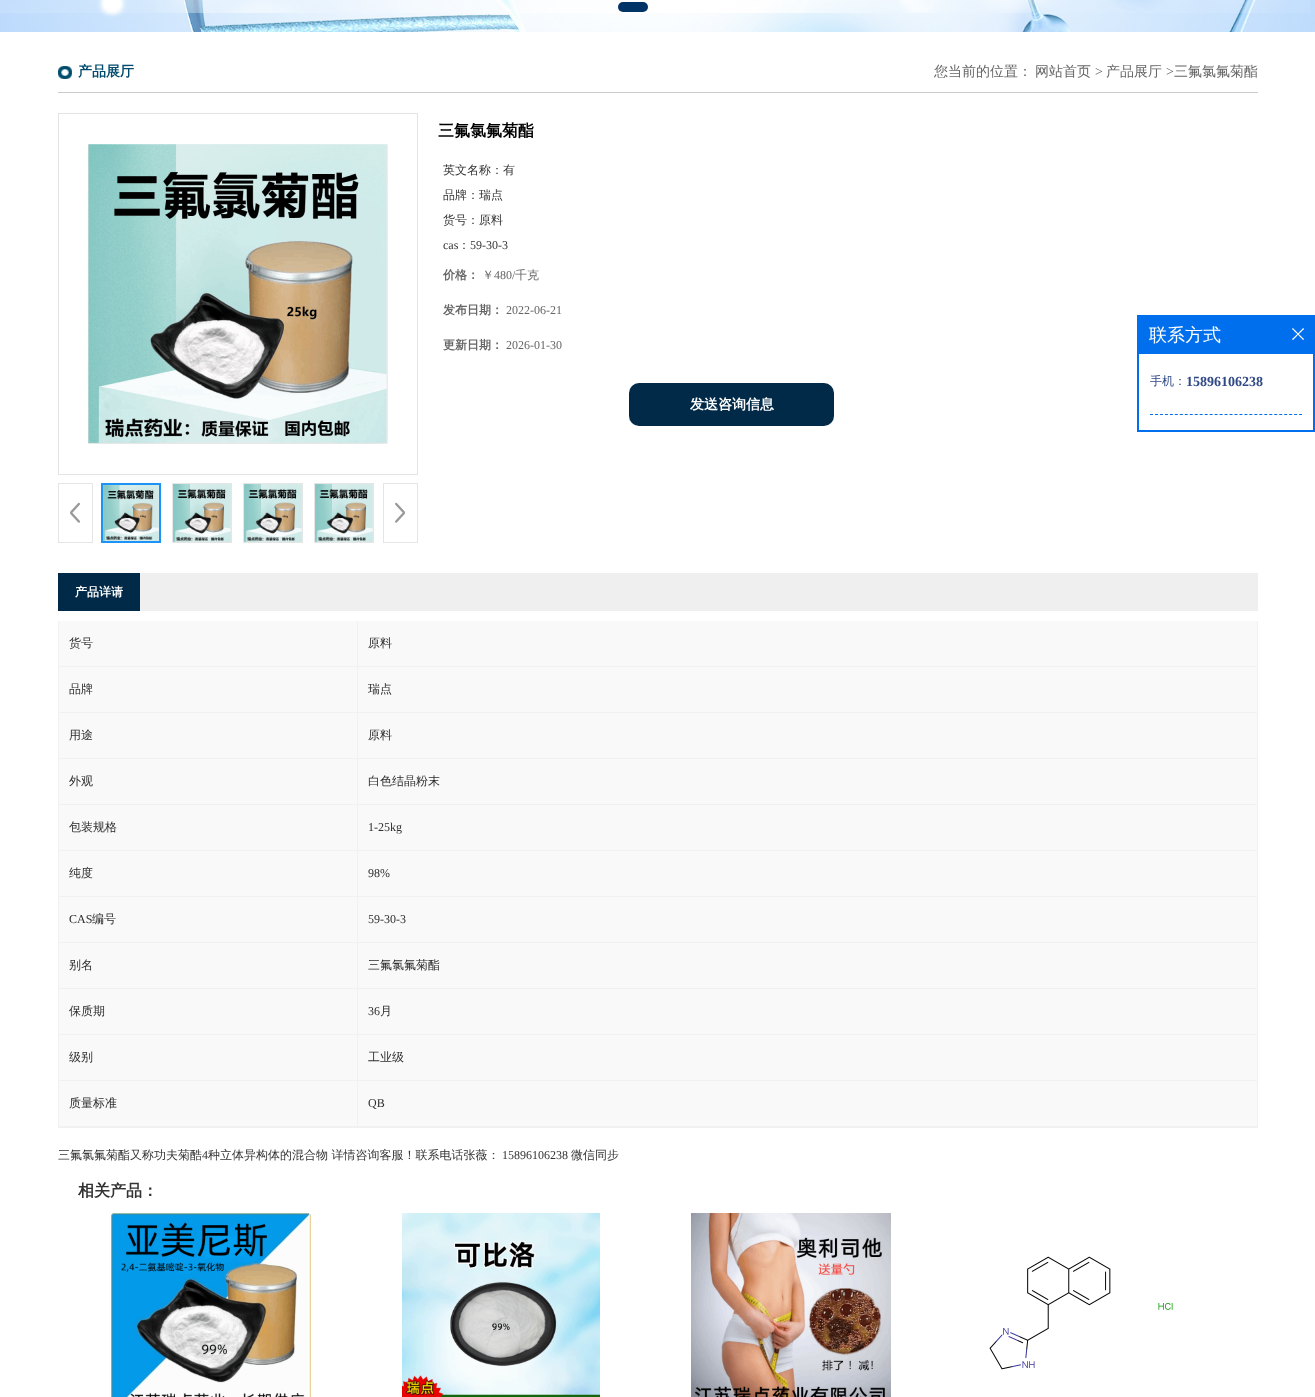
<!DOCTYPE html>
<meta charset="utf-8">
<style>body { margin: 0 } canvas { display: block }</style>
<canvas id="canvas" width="1315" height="1397"></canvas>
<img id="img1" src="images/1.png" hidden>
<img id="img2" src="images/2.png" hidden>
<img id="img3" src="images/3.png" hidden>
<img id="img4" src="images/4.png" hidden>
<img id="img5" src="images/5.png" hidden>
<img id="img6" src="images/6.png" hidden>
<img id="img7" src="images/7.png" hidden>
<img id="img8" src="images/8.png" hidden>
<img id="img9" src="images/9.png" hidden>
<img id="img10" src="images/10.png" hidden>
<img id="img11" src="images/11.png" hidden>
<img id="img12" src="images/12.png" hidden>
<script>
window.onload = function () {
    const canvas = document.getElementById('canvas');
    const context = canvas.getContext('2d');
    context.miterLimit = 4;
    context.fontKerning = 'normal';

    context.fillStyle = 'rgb(255, 255, 255)';
    context.fillRect(0, 0, 1315, 1397);
    context.drawImage(document.getElementById('img1'), 0, 0, 1315, 32);
    context.fillStyle = 'rgb(0, 51, 102)';
    context.beginPath();
    context.roundRect(618, 2, 30, 10, 5);
    context.fill();
    context.fillStyle = 'rgb(204, 204, 204)';
    context.fillRect(58, 92, 1200, 1);
    context.drawImage(document.getElementById('img2'), 58, 66, 14, 13);
    context.strokeStyle = 'rgb(228, 228, 228)';
    context.strokeRect(58.5, 113.5, 359, 361);
    context.drawImage(document.getElementById('img3'), 88, 144, 300, 300);
    context.drawImage(document.getElementById('img4'), 70, 502, 10, 21);
    context.strokeStyle = 'rgb(229, 229, 229)';
    context.strokeRect(58.5, 483.5, 34, 59);
    context.strokeStyle = 'rgb(27, 148, 246)';
    context.lineWidth = 2;
    context.strokeRect(102, 484, 58, 58);
    context.drawImage(document.getElementById('img5'), 103, 485, 56, 56);
    context.strokeStyle = 'rgb(229, 229, 229)';
    context.lineWidth = 1;
    context.strokeRect(172.5, 483.5, 59, 59);
    context.drawImage(document.getElementById('img6'), 173, 484, 58, 58);
    context.strokeRect(243.5, 483.5, 59, 59);
    context.drawImage(document.getElementById('img6'), 244, 484, 58, 58);
    context.strokeRect(314.5, 483.5, 59, 59);
    context.drawImage(document.getElementById('img6'), 315, 484, 58, 58);
    context.drawImage(document.getElementById('img7'), 395, 502, 10, 21);
    context.strokeRect(383.5, 483.5, 34, 59);
    context.fillStyle = 'rgb(0, 42, 72)';
    context.beginPath();
    context.roundRect(629, 383, 205, 43, 10);
    context.fill();
    context.fillStyle = 'rgb(239, 239, 239)';
    context.fillRect(140, 573, 1118, 38);
    context.fillStyle = 'rgb(0, 42, 72)';
    context.fillRect(58, 573, 82, 38);
    context.fillStyle = 'rgb(241, 241, 241)';
    context.fillRect(58, 1127, 1200, 1);
    context.fillRect(58, 621, 1, 507);
    context.fillStyle = 'rgb(249, 249, 249)';
    context.fillRect(59, 621, 1198, 505);
    context.fillStyle = 'rgb(241, 241, 241)';
    context.fillRect(357, 621, 1, 506);
    context.fillRect(59, 666, 299, 1);
    context.fillRect(1257, 621, 1, 506);
    context.fillRect(358, 666, 900, 1);
    context.fillRect(59, 712, 1199, 1);
    context.fillRect(59, 758, 1199, 1);
    context.fillRect(59, 804, 1199, 1);
    context.fillRect(59, 850, 1199, 1);
    context.fillRect(59, 896, 1199, 1);
    context.fillRect(59, 942, 1199, 1);
    context.fillRect(59, 988, 1199, 1);
    context.fillRect(59, 1034, 1199, 1);
    context.fillRect(59, 1080, 1199, 1);
    context.fillRect(59, 1126, 1199, 1);
    context.drawImage(document.getElementById('img8'), 111, 1213, 200, 184);
    context.drawImage(document.getElementById('img9'), 402, 1213, 198, 184);
    context.drawImage(document.getElementById('img10'), 691, 1213, 200, 184);
    context.drawImage(document.getElementById('img11'), 989, 1256, 184, 114);
    context.fillStyle = 'rgb(0, 111, 237)';
    context.fillRect(1137, 315, 178, 117);
    context.drawImage(document.getElementById('img12'), 1292, 328, 12, 12);
    context.fillStyle = 'rgb(255, 255, 255)';
    context.fillRect(1139, 354, 174, 76);
    context.beginPath();
    context.moveTo(1150, 414.5);
    context.lineTo(1302, 414.5);
    context.strokeStyle = 'rgb(0, 111, 237)';
    context.setLineDash([3, 1.97]);
    context.stroke();
    context.font = 'bold 14px WenQuanYi Zen Hei';
    context.fillStyle = 'rgb(1, 76, 108)';
    context.fillText('产品展厅', 78, 76);
    context.font = '500 14px WenQuanYi Zen Hei';
    context.fillStyle = 'rgb(102, 102, 102)';
    context.fillText('您当前的位置：', 934, 76);
    context.fillText('网站首页', 1035, 76);
    context.font = '14px Liberation Serif';
    context.fillText('>', 1095, 76);
    context.font = '500 14px WenQuanYi Zen Hei';
    context.fillText('产品展厅', 1106, 76);
    context.font = '14px Liberation Serif';
    context.fillText('>', 1166, 76);
    context.font = '500 14px WenQuanYi Zen Hei';
    context.fillText('三氟氯氟菊酯', 1174, 76);
    context.font = 'bold 16px WenQuanYi Zen Hei';
    context.fillStyle = 'rgb(0, 0, 0)';
    context.fillText('三氟氯氟菊酯', 438, 136);
    context.font = '500 12px WenQuanYi Zen Hei';
    context.fillStyle = 'rgb(51, 51, 51)';
    context.fillText('英文名称：有', 443, 174);
    context.fillText('品牌：瑞点', 443, 199);
    context.fillText('货号：原料', 443, 224);
    context.font = '12px Liberation Serif';
    context.fillText('cas', 443, 249);
    context.font = '500 12px WenQuanYi Zen Hei';
    context.fillText('：', 458, 249);
    context.font = '12px Liberation Serif';
    context.fillText('59-30-3', 470, 249);
    context.font = 'bold 12px WenQuanYi Zen Hei';
    context.fillStyle = 'rgb(102, 102, 102)';
    context.fillText('价格：', 443, 279);
    context.font = '500 12px WenQuanYi Zen Hei';
    context.fillText('￥', 482, 279);
    context.font = '12px Liberation Serif';
    context.fillText('480/', 494, 279);
    context.font = '500 12px WenQuanYi Zen Hei';
    context.fillText('千克', 515, 279);
    context.font = 'bold 12px WenQuanYi Zen Hei';
    context.fillText('发布日期：', 443, 314);
    context.font = '12px Liberation Serif';
    context.fillText('2022-06-21', 506, 314);
    context.font = 'bold 12px WenQuanYi Zen Hei';
    context.fillText('更新日期：', 443, 349);
    context.font = '12px Liberation Serif';
    context.fillText('2026-01-30', 506, 349);
    context.font = 'bold 14px WenQuanYi Zen Hei';
    context.fillStyle = 'rgb(255, 255, 255)';
    context.fillText('发送咨询信息', 690, 409);
    context.font = 'bold 12px WenQuanYi Zen Hei';
    context.fillText('产品详请', 75, 596);
    context.font = '500 12px WenQuanYi Zen Hei';
    context.fillStyle = 'rgb(45, 45, 45)';
    context.fillText('货号', 69, 647);
    context.fillText('原料', 368, 647);
    context.fillText('品牌', 69, 693);
    context.fillText('瑞点', 368, 693);
    context.fillText('用途', 69, 739);
    context.fillText('原料', 368, 739);
    context.fillText('外观', 69, 785);
    context.fillText('白色结晶粉末', 368, 785);
    context.fillText('包装规格', 69, 831);
    context.font = '12px Liberation Serif';
    context.fillText('1-25kg', 368, 831);
    context.font = '500 12px WenQuanYi Zen Hei';
    context.fillText('纯度', 69, 877);
    context.font = '12px Liberation Serif';
    context.fillText('98%', 368, 877);
    context.fillText('CAS', 69, 923);
    context.font = '500 12px WenQuanYi Zen Hei';
    context.fillText('编号', 92, 923);
    context.font = '12px Liberation Serif';
    context.fillText('59-30-3', 368, 923);
    context.font = '500 12px WenQuanYi Zen Hei';
    context.fillText('别名', 69, 969);
    context.fillText('三氟氯氟菊酯', 368, 969);
    context.fillText('保质期', 69, 1015);
    context.font = '12px Liberation Serif';
    context.fillText('36', 368, 1015);
    context.font = '500 12px WenQuanYi Zen Hei';
    context.fillText('月', 380, 1015);
    context.fillText('级别', 69, 1061);
    context.fillText('工业级', 368, 1061);
    context.fillText('质量标准', 69, 1107);
    context.font = '12px Liberation Serif';
    context.fillText('QB', 368, 1107);
    context.font = '500 12px WenQuanYi Zen Hei';
    context.fillStyle = 'rgb(51, 51, 51)';
    context.fillText('三氟氯氟菊酯又称功夫菊酷', 58, 1159);
    context.font = '12px Liberation Serif';
    context.fillText('4', 202, 1159);
    context.font = '500 12px WenQuanYi Zen Hei';
    context.fillText('种立体异构体的混合物 详情咨询客服！联系电话张薇：', 208, 1159);
    context.font = '12px Liberation Serif';
    context.fillText('15896106238', 502, 1159);
    context.font = '500 12px WenQuanYi Zen Hei';
    context.fillText('微信同步', 571, 1159);
    context.font = 'bold 16px WenQuanYi Zen Hei';
    context.fillText('相关产品：', 78, 1196);
    context.font = '500 18px WenQuanYi Zen Hei';
    context.fillStyle = 'rgb(255, 255, 255)';
    context.fillText('联系方式', 1149, 341);
    context.font = '500 12px WenQuanYi Zen Hei';
    context.fillStyle = 'rgb(49, 73, 133)';
    context.fillText('手机：', 1150, 385);
    context.font = 'bold 14px Liberation Serif';
    context.fillText('15896106238', 1186, 386);
};
</script>
